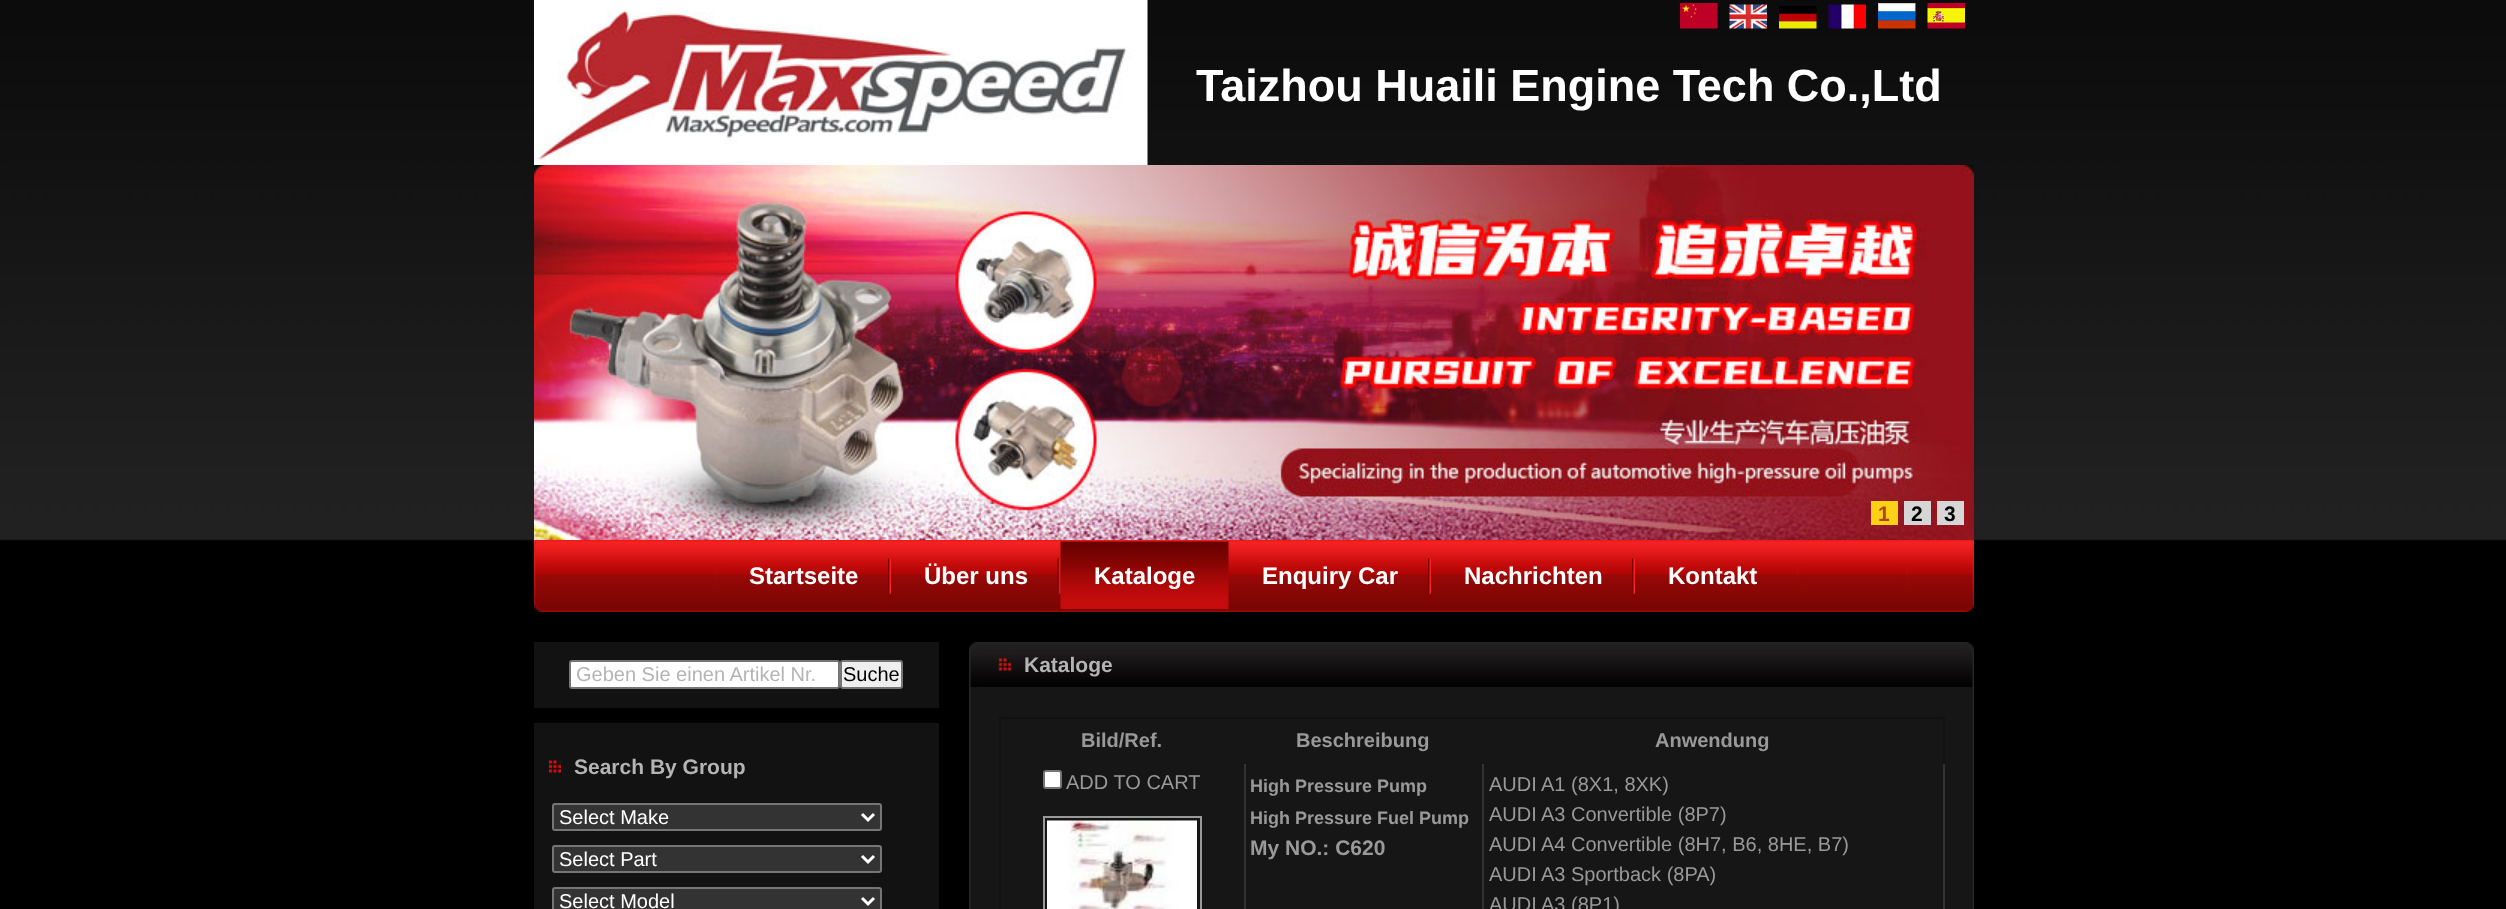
<!DOCTYPE html>
<meta charset="utf-8">
<style>body { margin: 0 } canvas { display: block }</style>
<canvas id="canvas" width="2506" height="909"></canvas>
<img id="img1" src="images/1.png" hidden>
<img id="img2" src="images/2.png" hidden>
<img id="img3" src="images/3.png" hidden>
<img id="img4" src="images/4.png" hidden>
<img id="img5" src="images/5.png" hidden>
<img id="img6" src="images/6.png" hidden>
<img id="img7" src="images/7.png" hidden>
<img id="img8" src="images/8.png" hidden>
<img id="img9" src="images/9.png" hidden>
<img id="img10" src="images/10.png" hidden>
<img id="img11" src="images/11.png" hidden>
<img id="img12" src="images/12.png" hidden>
<img id="img13" src="images/13.png" hidden>
<img id="img14" src="images/14.png" hidden>
<img id="img15" src="images/15.png" hidden>
<img id="img16" src="images/16.png" hidden>
<img id="img17" src="images/17.png" hidden>
<script>
window.onload = function () {
    const canvas = document.getElementById('canvas');
    const context = canvas.getContext('2d');
    context.miterLimit = 4;
    context.fontKerning = 'normal';

    context.fillStyle = 'rgb(0, 0, 0)';
    context.fillRect(0, 0, 2506, 909);
    context.drawImage(document.getElementById('img1'), 0, 0, 2506, 541);
    context.drawImage(document.getElementById('img2'), 534, 0, 614, 165);
    context.drawImage(document.getElementById('img3'), 1680, 3, 38, 26);
    context.drawImage(document.getElementById('img4'), 1729, 4, 38, 25);
    context.drawImage(document.getElementById('img5'), 1779, 6, 38, 23);
    context.drawImage(document.getElementById('img6'), 1828, 4, 38, 25);
    context.drawImage(document.getElementById('img7'), 1878, 3, 38, 26);
    context.drawImage(document.getElementById('img8'), 1927, 3, 38, 26);
    context.drawImage(document.getElementById('img9'), 534, 165, 1440, 375);
    context.fillStyle = 'rgb(255, 209, 22)';
    context.fillRect(1871, 501, 27, 24);
    context.fillStyle = 'rgb(215, 214, 215)';
    context.fillRect(1904, 501, 27, 24);
    context.fillRect(1937, 501, 27, 24);
    context.drawImage(document.getElementById('img10'), 534, 540, 1440, 72);
    context.drawImage(document.getElementById('img11'), 888, 558, 3, 36);
    context.drawImage(document.getElementById('img12'), 1057, 558, 4, 36);
    context.drawImage(document.getElementById('img13'), 1060, 541, 169, 68);
    context.drawImage(document.getElementById('img11'), 1428, 558, 3, 36);
    context.drawImage(document.getElementById('img11'), 1632, 558, 3, 36);
    context.fillStyle = 'rgb(18, 18, 18)';
    context.fillRect(534, 642, 405, 66);
    context.fillStyle = 'rgb(255, 255, 255)';
    context.beginPath();
    context.roundRect(570, 661, 269, 27, 2);
    context.fill();
    context.strokeStyle = 'rgb(118, 118, 118)';
    context.lineWidth = 2;
    context.stroke();
    context.fillStyle = 'rgb(239, 239, 239)';
    context.beginPath();
    context.roundRect(841, 661, 61, 27, 2);
    context.fill();
    context.stroke();
    context.fillStyle = 'rgb(18, 18, 18)';
    context.fillRect(534, 723, 405, 186);
    context.drawImage(document.getElementById('img14'), 549, 760, 12, 13);
    context.fillStyle = 'rgb(51, 51, 51)';
    context.beginPath();
    context.roundRect(553, 804, 328, 26, 2);
    context.fill();
    context.stroke();
    context.beginPath();
    context.moveTo(862, 814);
    context.lineTo(868, 820);
    context.lineTo(874, 814);
    context.strokeStyle = 'rgb(255, 255, 255)';
    context.lineWidth = 3;
    context.stroke();
    context.beginPath();
    context.roundRect(553, 846, 328, 26, 2);
    context.fill();
    context.strokeStyle = 'rgb(118, 118, 118)';
    context.lineWidth = 2;
    context.stroke();
    context.beginPath();
    context.moveTo(862, 856);
    context.lineTo(868, 862);
    context.lineTo(874, 856);
    context.strokeStyle = 'rgb(255, 255, 255)';
    context.lineWidth = 3;
    context.stroke();
    context.beginPath();
    context.roundRect(553, 888, 328, 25, 2);
    context.fill();
    context.strokeStyle = 'rgb(118, 118, 118)';
    context.lineWidth = 2;
    context.stroke();
    context.beginPath();
    context.moveTo(862, 898);
    context.lineTo(868, 904);
    context.lineTo(874, 898);
    context.strokeStyle = 'rgb(255, 255, 255)';
    context.lineWidth = 3;
    context.stroke();
    context.drawImage(document.getElementById('img15'), 969, 687, 1005, 222);
    context.drawImage(document.getElementById('img16'), 969, 642, 1005, 45);
    context.fillStyle = 'rgb(17, 17, 17)';
    context.fillRect(999, 717, 945, 2);
    context.fillRect(1943, 717, 2, 47);
    context.fillRect(999, 717, 2, 192);
    context.fillStyle = 'rgb(51, 51, 51)';
    context.fillRect(1244, 764, 2, 145);
    context.fillStyle = 'rgb(255, 255, 255)';
    context.beginPath();
    context.roundRect(1044, 771, 17, 17, 2);
    context.fill();
    context.strokeStyle = 'rgb(118, 118, 118)';
    context.lineWidth = 2;
    context.stroke();
    context.strokeStyle = 'rgb(153, 153, 153)';
    context.strokeRect(1044, 817, 157, 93);
    context.drawImage(document.getElementById('img17'), 1047, 820, 150, 89);
    context.fillStyle = 'rgb(51, 51, 51)';
    context.fillRect(1482, 764, 2, 145);
    context.fillRect(1943, 764, 2, 145);
    context.font = 'bold 45px Liberation Sans';
    context.fillStyle = 'rgb(255, 255, 255)';
    context.fillText('Taizhou Huaili Engine Tech Co.,Ltd', 1196, 101);
    context.font = 'bold 21px Liberation Sans';
    context.fillStyle = 'rgb(168, 71, 28)';
    context.fillText('1', 1878, 521);
    context.fillStyle = 'rgb(0, 0, 0)';
    context.fillText('2', 1911, 521);
    context.fillText('3', 1944, 521);
    context.font = 'bold 24px Liberation Sans';
    context.fillStyle = 'rgb(255, 255, 255)';
    context.fillText('Startseite', 749, 584);
    context.fillText('Über uns', 924, 584);
    context.fillText('Kataloge', 1094, 584);
    context.fillText('Enquiry Car', 1262, 584);
    context.fillText('Nachrichten', 1464, 584);
    context.fillText('Kontakt', 1668, 584);
    context.font = '20px Liberation Sans';
    context.fillStyle = 'rgb(180, 180, 180)';
    context.fillText('Geben Sie einen Artikel Nr.', 576, 681);
    context.fillStyle = 'rgb(0, 0, 0)';
    context.fillText('Suche', 843, 681);
    context.font = 'bold 21px Liberation Sans';
    context.fillStyle = 'rgb(180, 180, 180)';
    context.fillText('Search By Group', 574, 774);
    context.font = '20px Liberation Sans';
    context.fillStyle = 'rgb(255, 255, 255)';
    context.fillText('Select Make', 559, 824);
    context.fillText('Select Part', 559, 866);
    context.fillText('Select Model', 559, 908);
    context.font = 'bold 21px Liberation Sans';
    context.fillStyle = 'rgb(180, 180, 180)';
    context.fillText('Kataloge', 1024, 672);
    context.font = 'bold 20px Liberation Sans';
    context.fillStyle = 'rgb(153, 153, 153)';
    context.fillText('Bild/Ref.', 1081, 747);
    context.fillText('Beschreibung', 1296, 747);
    context.fillText('Anwendung', 1655, 747);
    context.font = '20px Liberation Sans';
    context.fillText('ADD TO CART', 1066, 789);
    context.font = 'bold 18px Liberation Sans';
    context.fillText('High Pressure Pump', 1250, 792);
    context.fillText('High Pressure Fuel Pump', 1250, 824);
    context.font = 'bold 21px Liberation Sans';
    context.fillText('My NO.: C620', 1250, 855);
    context.font = '20px Liberation Sans';
    context.fillText('AUDI', 1489, 791);
    context.fillText('A1 (8X1, 8XK)', 1541, 791);
    context.fillText('AUDI', 1489, 821);
    context.fillText('A3 Convertible (8P7)', 1541, 821);
    context.fillText('AUDI', 1489, 851);
    context.fillText('A4 Convertible (8H7, B6, 8HE, B7)', 1541, 851);
    context.fillText('AUDI', 1489, 881);
    context.fillText('A3 Sportback (8PA)', 1541, 881);
    context.fillText('AUDI', 1489, 911);
    context.fillText('A3 (8P1)', 1541, 911);
};
</script>
